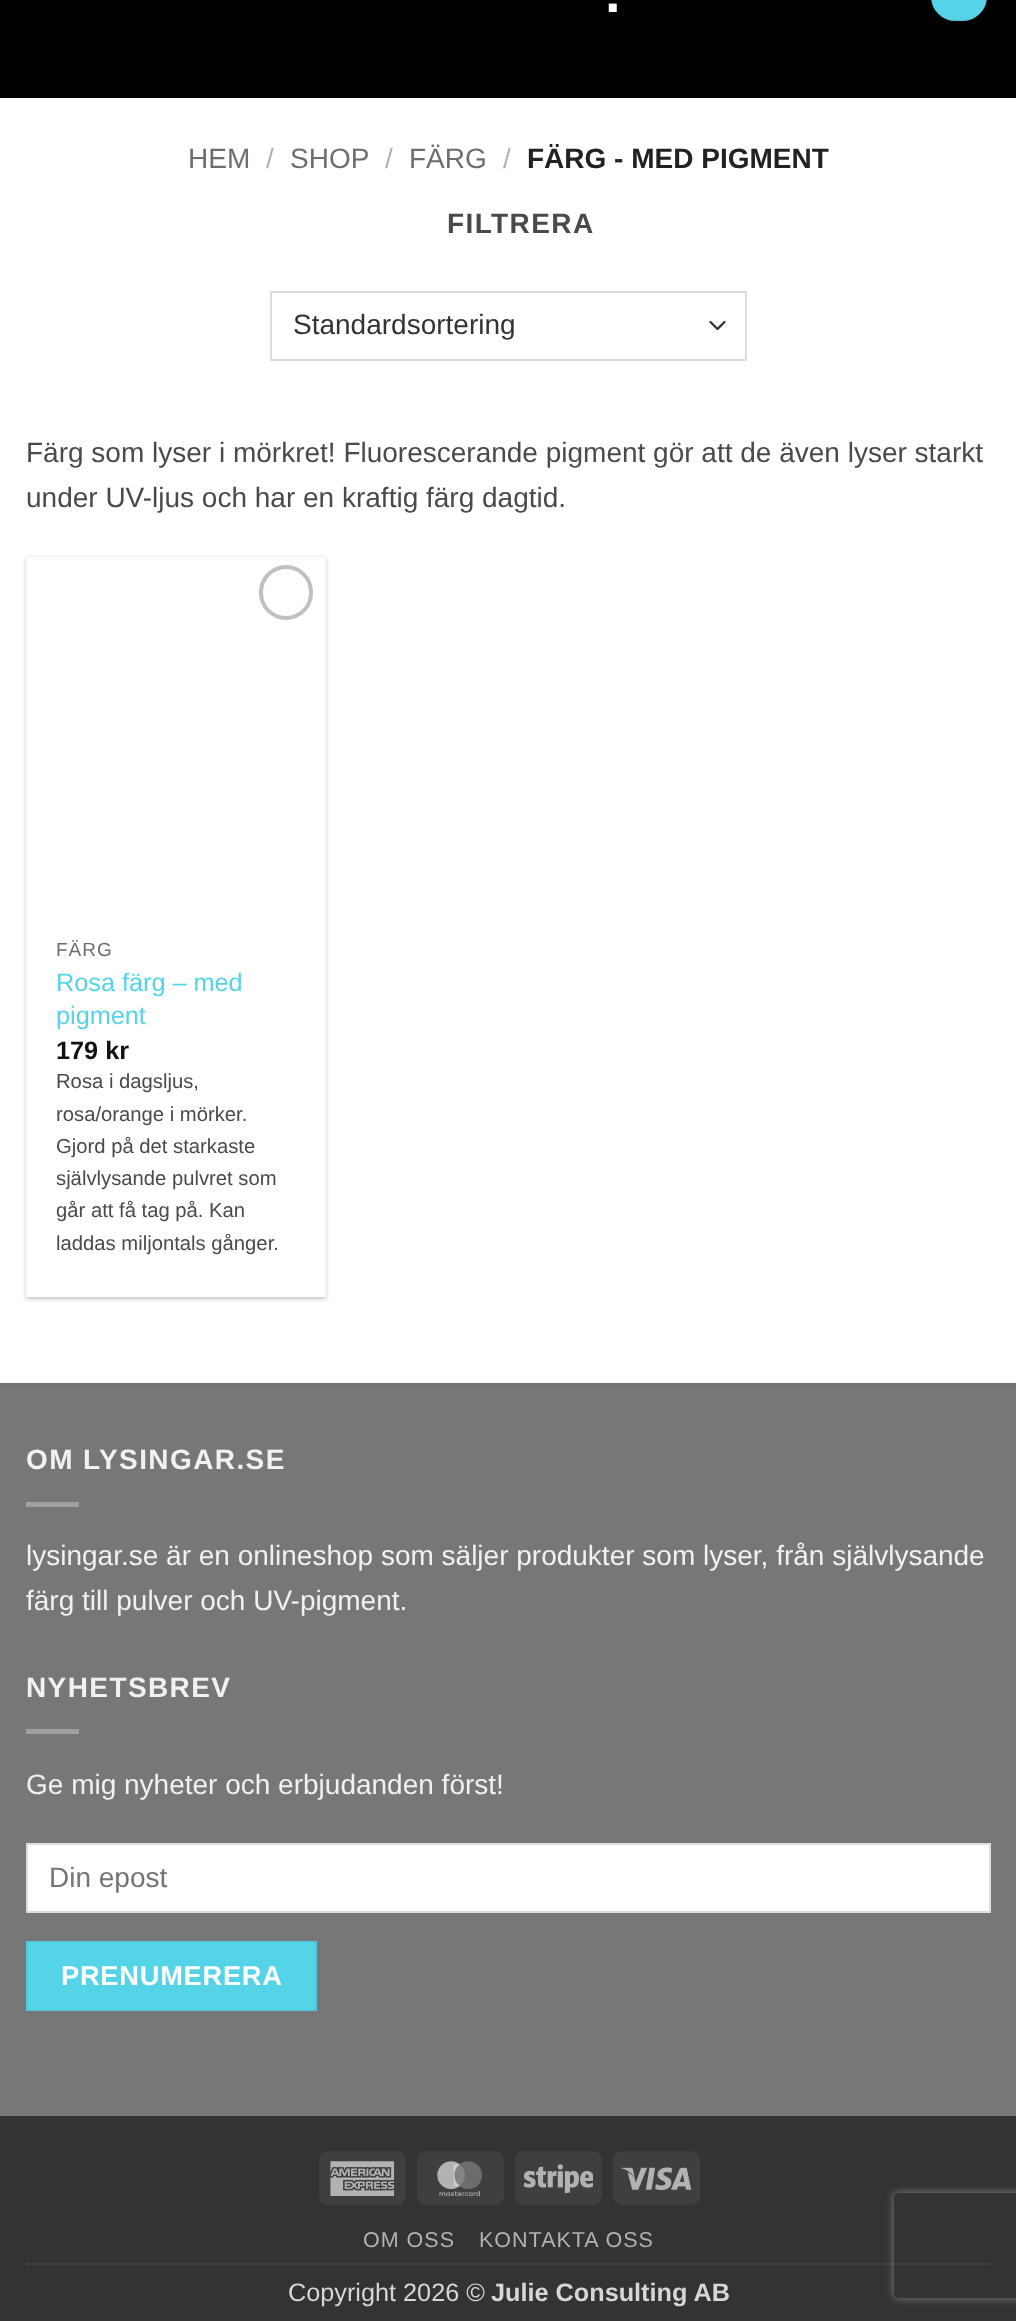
<!DOCTYPE html>
<meta charset="utf-8">
<style>body { margin: 0 } canvas { display: block }</style>
<canvas id="canvas" width="1016" height="2321"></canvas>
<img id="img1" src="images/1.png" hidden>
<img id="img2" src="images/2.png" hidden>
<img id="img3" src="images/3.png" hidden>
<img id="img4" src="images/4.png" hidden>
<script>
window.onload = function () {
    const canvas = document.getElementById('canvas');
    const context = canvas.getContext('2d');
    context.miterLimit = 4;
    context.fontKerning = 'normal';

    context.fillStyle = 'rgb(255, 255, 255)';
    context.fillRect(0, 0, 1016, 2321);
    context.fillStyle = 'rgb(0, 0, 0)';
    context.fillRect(0, 0, 1016, 98);
    context.fillStyle = 'rgb(85, 212, 232)';
    context.beginPath();
    context.roundRect(931, -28, 56, 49, 28);
    context.fill();
    context.strokeStyle = 'rgba(0, 0, 0, 0.05)';
    context.lineWidth = 2;
    context.strokeRect(932, -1, 54, 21);
    context.beginPath();
    context.moveTo(710.5, 322);
    context.lineTo(717.5, 329);
    context.lineTo(724.5, 322);
    context.strokeStyle = 'rgb(51, 51, 51)';
    context.lineWidth = 2.3;
    context.lineCap = 'round';
    context.lineJoin = 'round';
    context.stroke();
    context.strokeStyle = 'rgb(221, 221, 221)';
    context.lineWidth = 2;
    context.lineJoin = 'miter';
    context.strokeRect(271, 292, 475, 68);
    context.fillStyle = 'rgba(0, 0, 0, 0.24)';
    context.filter = 'blur(2px)';
    context.beginPath();
    context.rect(26, 558, 300, 741);
    context.fill();
    context.filter = 'none';
    context.fillStyle = 'rgb(255, 255, 255)';
    context.fillRect(26, 557, 300, 740);
    context.beginPath();
    context.roundRect(261, 567, 50, 51, 25);
    context.strokeStyle = 'rgb(192, 192, 192)';
    context.lineWidth = 4;
    context.stroke();
    context.fillStyle = 'rgb(119, 119, 119)';
    context.fillRect(0, 1385, 1016, 731);
    context.fillStyle = 'rgb(113, 113, 113)';
    context.fillRect(0, 1383, 1016, 2);
    context.fillStyle = 'rgb(160, 160, 160)';
    context.fillRect(26, 1502, 53, 5);
    context.fillRect(26, 1729, 53, 5);
    context.fillStyle = 'rgb(255, 255, 255)';
    context.beginPath();
    context.rect(27, 1844, 963, 68);
    context.fill();
    context.strokeStyle = 'rgb(221, 221, 221)';
    context.lineWidth = 2;
    context.stroke();
    context.fillStyle = 'rgb(85, 212, 232)';
    context.beginPath();
    context.rect(27, 1942, 289, 68);
    context.fill();
    context.strokeStyle = 'rgb(81, 201, 220)';
    context.stroke();
    context.fillStyle = 'rgb(51, 51, 51)';
    context.fillRect(0, 2116, 1016, 205);
    context.fillStyle = 'rgb(63, 63, 63)';
    context.beginPath();
    context.roundRect(319, 2151, 87, 54, 9);
    context.fill();
    context.drawImage(document.getElementById('img1'), 330, 2161, 65, 35);
    context.beginPath();
    context.roundRect(417, 2151, 87, 54, 9);
    context.fill();
    context.drawImage(document.getElementById('img2'), 437, 2161, 46, 35);
    context.beginPath();
    context.roundRect(515, 2151, 87, 54, 9);
    context.fill();
    context.drawImage(document.getElementById('img3'), 523, 2164, 70, 30);
    context.beginPath();
    context.roundRect(613, 2151, 87, 54, 9);
    context.fill();
    context.drawImage(document.getElementById('img4'), 621, 2167, 70, 24);
    context.fillStyle = 'rgb(64, 64, 64)';
    context.fillRect(26, 2263, 965, 2);
    context.save();
    context.beginPath();
    context.moveTo(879, 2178);
    context.lineTo(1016, 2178);
    context.lineTo(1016, 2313);
    context.lineTo(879, 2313);
    context.closePath();
    context.moveTo(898, 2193);
    context.lineTo(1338, 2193);
    context.bezierCurveTo(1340, 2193, 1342, 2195, 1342, 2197);
    context.lineTo(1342, 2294);
    context.bezierCurveTo(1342, 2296, 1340, 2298, 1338, 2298);
    context.lineTo(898, 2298);
    context.bezierCurveTo(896, 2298, 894, 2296, 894, 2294);
    context.lineTo(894, 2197);
    context.bezierCurveTo(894, 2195, 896, 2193, 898, 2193);
    context.closePath();
    context.clip('evenodd');
    context.fillStyle = 'rgb(128, 128, 128)';
    context.filter = 'blur(4.5px)';
    context.beginPath();
    context.roundRect(894, 2193, 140, 105, 4);
    context.fill();
    context.filter = 'none';
    context.restore();
    context.font = 'bold 56px Liberation Sans';
    context.fillStyle = 'rgb(255, 255, 255)';
    context.fillText('.', 605, 12);
    context.font = '28px Liberation Sans';
    context.fillStyle = 'rgb(110, 110, 110)';
    context.fillText('HEM', 188, 168);
    context.fillStyle = 'rgb(178, 178, 178)';
    context.fillText('/', 266, 168);
    context.fillStyle = 'rgb(110, 110, 110)';
    context.fillText('SHOP', 290, 168);
    context.fillStyle = 'rgb(178, 178, 178)';
    context.fillText('/', 385, 168);
    context.fillStyle = 'rgb(110, 110, 110)';
    context.fillText('FÄRG', 409, 168);
    context.fillStyle = 'rgb(178, 178, 178)';
    context.fillText('/', 503, 168);
    context.font = 'bold 28px Liberation Sans';
    context.fillStyle = 'rgb(34, 34, 34)';
    context.fillText('FÄRG - MED PIGMENT', 527, 168);
    context.letterSpacing = '1.4px';
    context.fillStyle = 'rgb(74, 74, 74)';
    context.fillText('FILTRERA', 447, 233);
    context.letterSpacing = '0px';
    context.font = '28px Liberation Sans';
    context.fillStyle = 'rgb(51, 51, 51)';
    context.fillText('Standardsortering', 293, 334);
    context.fillStyle = 'rgb(74, 74, 74)';
    context.fillText('Färg som lyser i mörkret! Fluorescerande pigment gör att de även lyser starkt', 26, 462);
    context.fillText('under UV-ljus och har en kraftig färg dagtid.', 26, 507);
    context.letterSpacing = '1px';
    context.font = '19px Liberation Sans';
    context.fillStyle = 'rgb(110, 110, 110)';
    context.fillText('FÄRG', 56, 956);
    context.letterSpacing = '0px';
    context.font = '25.25px Liberation Sans';
    context.fillStyle = 'rgb(85, 212, 232)';
    context.fillText('Rosa färg – med', 56, 991);
    context.fillText('pigment', 56, 1024);
    context.font = 'bold 25.25px Liberation Sans';
    context.fillStyle = 'rgb(17, 17, 17)';
    context.fillText('179 kr', 56, 1059);
    context.font = '20.25px Liberation Sans';
    context.fillStyle = 'rgb(74, 74, 74)';
    context.fillText('Rosa i dagsljus,', 56, 1088);
    context.fillText('rosa/orange i mörker.', 56, 1121);
    context.fillText('Gjord på det starkaste', 56, 1153);
    context.fillText('självlysande pulvret som', 56, 1185);
    context.fillText('går att få tag på. Kan', 56, 1217);
    context.fillText('laddas miljontals gånger.', 56, 1250);
    context.letterSpacing = '1.4px';
    context.font = 'bold 28px Liberation Sans';
    context.fillStyle = 'rgb(241, 241, 241)';
    context.fillText('OM LYSINGAR.SE', 26, 1469);
    context.letterSpacing = '0px';
    context.font = '28px Liberation Sans';
    context.fillText('lysingar.se är en onlineshop som säljer produkter som lyser, från självlysande', 26, 1565);
    context.fillText('färg till pulver och UV-pigment.', 26, 1610);
    context.letterSpacing = '1.4px';
    context.font = 'bold 28px Liberation Sans';
    context.fillText('NYHETSBREV', 26, 1697);
    context.letterSpacing = '0px';
    context.font = '28px Liberation Sans';
    context.fillText('Ge mig nyheter och erbjudanden först!', 26, 1794);
    context.fillStyle = 'rgb(117, 117, 117)';
    context.fillText('Din epost', 49, 1887);
    context.letterSpacing = '0.75px';
    context.font = 'bold 27.25px Liberation Sans';
    context.fillStyle = 'rgb(255, 255, 255)';
    context.fillText('PRENUMERERA', 61, 1985);
    context.letterSpacing = '1px';
    context.font = '21.5px Liberation Sans';
    context.fillStyle = 'rgb(178, 178, 178)';
    context.fillText('OM OSS', 363, 2247);
    context.fillText('KONTAKTA OSS', 479, 2247);
    context.letterSpacing = '0px';
    context.font = '25.25px Liberation Sans';
    context.fillStyle = 'rgb(214, 214, 214)';
    context.fillText('Copyright 2026 ©', 288, 2301);
    context.font = 'bold 25.25px Liberation Sans';
    context.fillText('Julie Consulting AB', 491, 2301);
};
</script>
